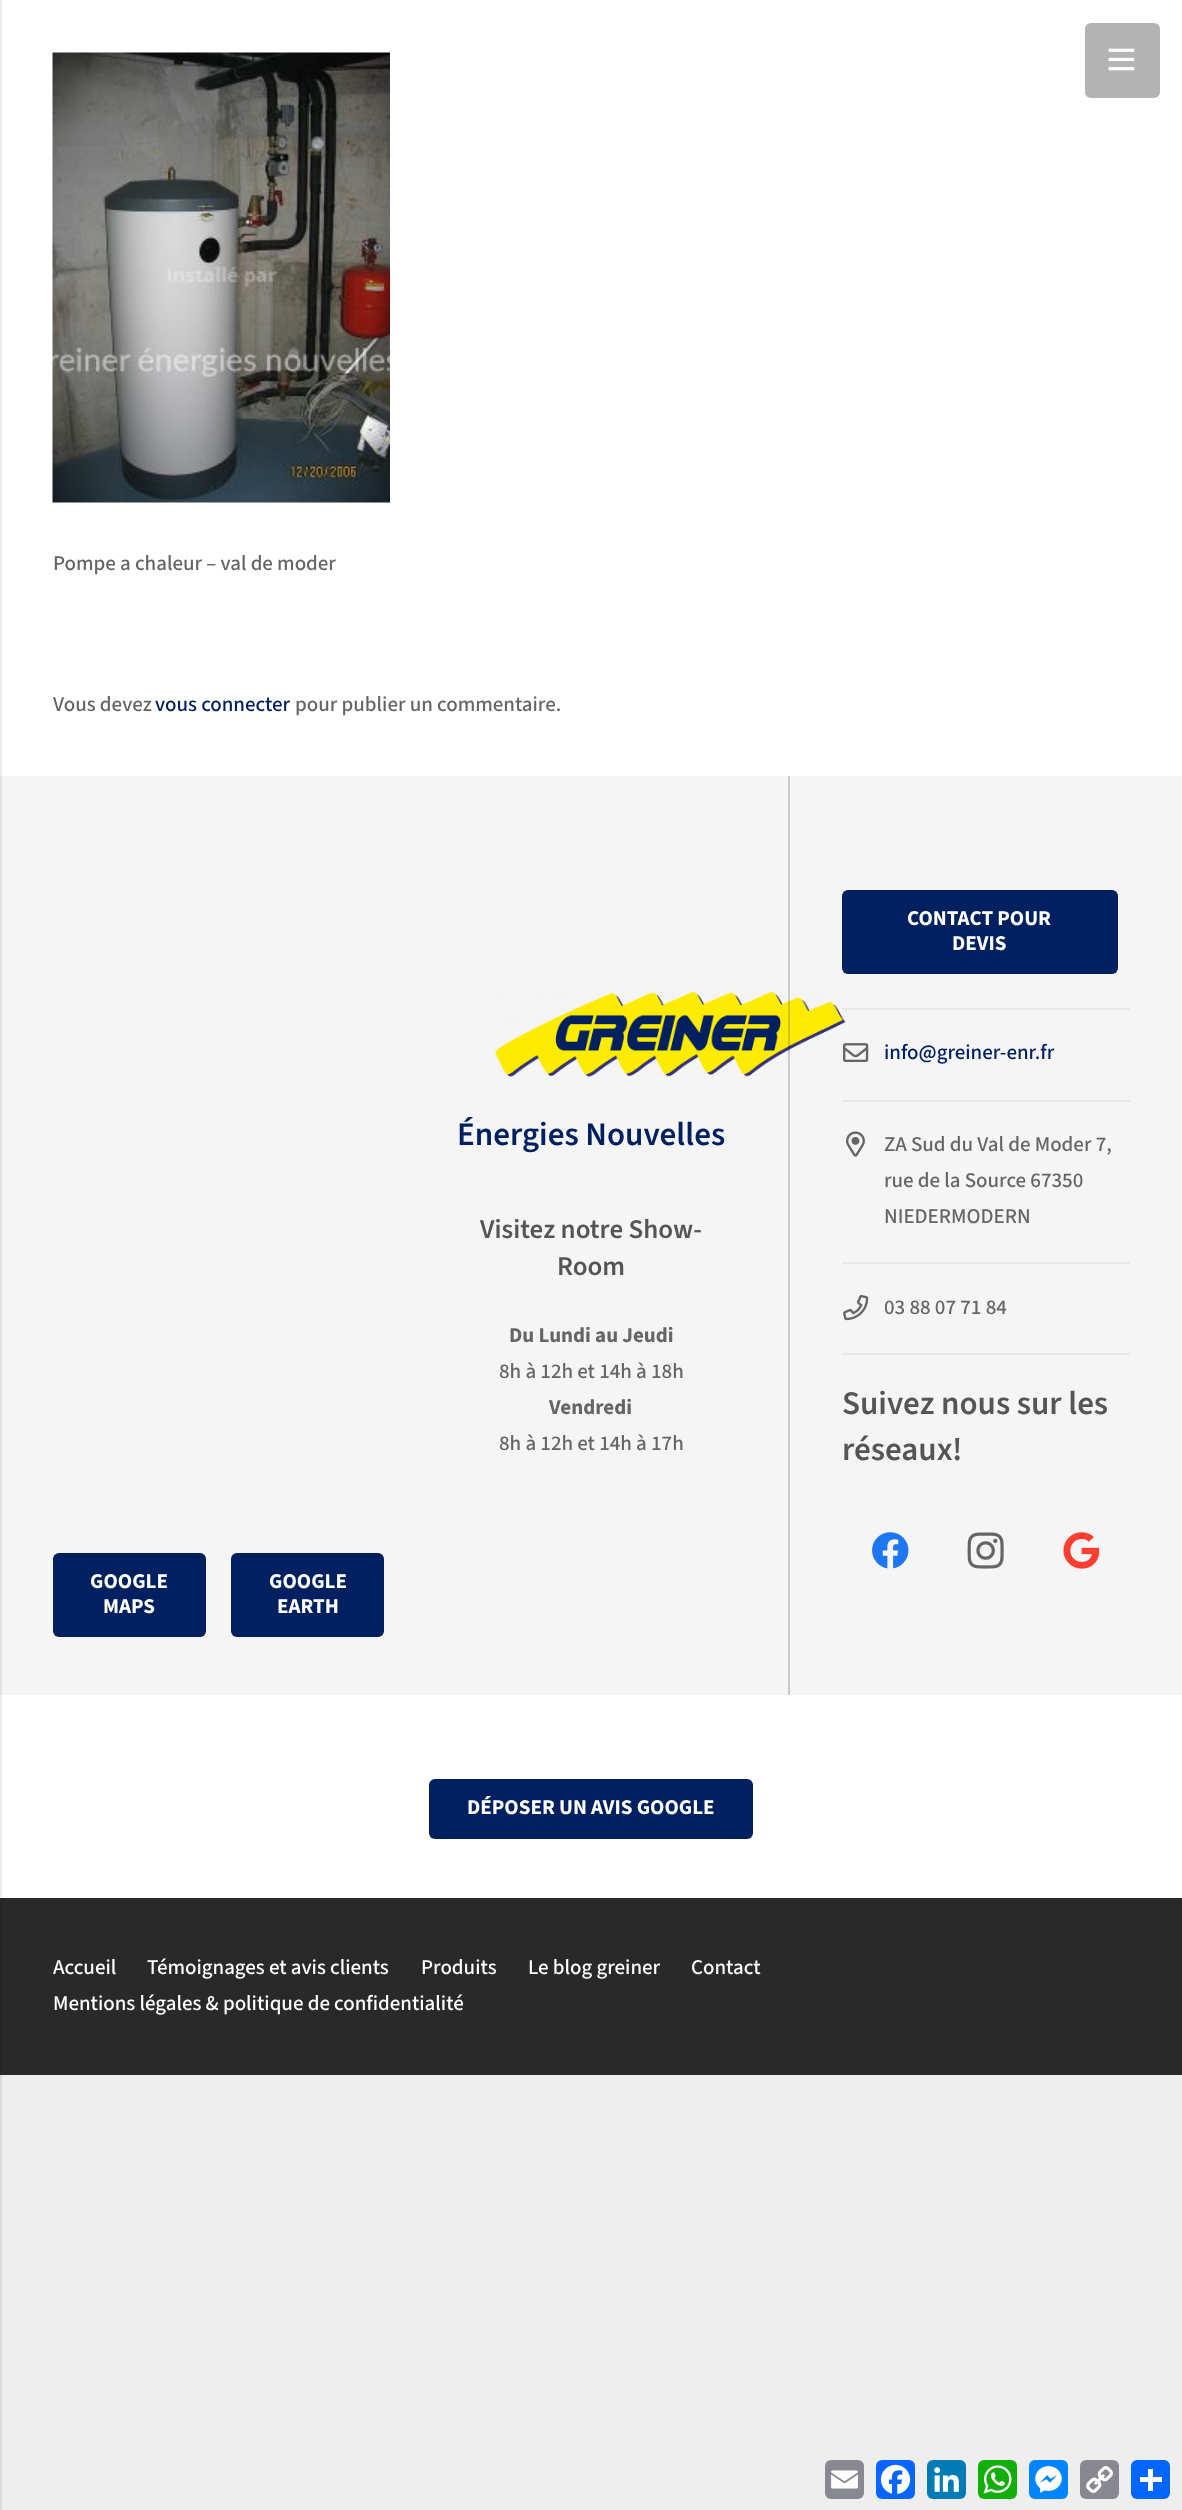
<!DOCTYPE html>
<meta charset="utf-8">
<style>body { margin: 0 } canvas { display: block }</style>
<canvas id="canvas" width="1182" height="2510"></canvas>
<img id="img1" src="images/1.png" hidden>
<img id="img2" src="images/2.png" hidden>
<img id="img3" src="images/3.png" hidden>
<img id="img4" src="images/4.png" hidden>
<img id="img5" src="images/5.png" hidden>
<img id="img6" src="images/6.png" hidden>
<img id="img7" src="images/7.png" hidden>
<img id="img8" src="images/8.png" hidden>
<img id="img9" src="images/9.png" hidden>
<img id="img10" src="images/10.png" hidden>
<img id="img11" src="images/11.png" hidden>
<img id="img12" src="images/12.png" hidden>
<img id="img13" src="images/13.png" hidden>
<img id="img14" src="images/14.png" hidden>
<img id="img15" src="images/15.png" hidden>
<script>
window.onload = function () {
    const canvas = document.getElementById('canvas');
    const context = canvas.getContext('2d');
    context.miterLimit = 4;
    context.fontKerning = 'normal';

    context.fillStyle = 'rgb(238, 238, 238)';
    context.fillRect(0, 0, 1182, 2510);
    context.fillStyle = 'rgb(219, 219, 219)';
    context.fillRect(0, 2075, 2, 435);
    context.fillStyle = 'rgb(255, 255, 255)';
    context.fillRect(2, 0, 1180, 776);
    context.fillStyle = 'rgb(179, 179, 179)';
    context.beginPath();
    context.roundRect(1085, 23, 75, 75, 6);
    context.fill();
    context.drawImage(document.getElementById('img1'), 1108, 48, 27, 23);
    context.fillStyle = 'rgb(235, 235, 235)';
    context.fillRect(0, 0, 2, 776);
    context.drawImage(document.getElementById('img2'), 52, 52, 338, 451);
    context.fillStyle = 'rgb(245, 245, 245)';
    context.fillRect(2, 776, 1180, 919);
    context.fillStyle = 'rgb(225, 225, 225)';
    context.fillRect(0, 776, 2, 919);
    context.drawImage(document.getElementById('img3'), 495, 992, 351, 85);
    context.fillStyle = 'rgba(0, 0, 0, 0.17)';
    context.fillRect(788, 776, 2, 919);
    context.fillStyle = 'rgb(0, 32, 96)';
    context.beginPath();
    context.roundRect(842, 890, 276, 84, 6);
    context.fill();
    context.fillStyle = 'rgb(232, 232, 232)';
    context.fillRect(842, 1008, 288, 2);
    context.drawImage(document.getElementById('img4'), 843, 1043, 26, 19);
    context.fillRect(842, 1100, 288, 2);
    context.drawImage(document.getElementById('img5'), 846, 1131, 19, 26);
    context.fillRect(842, 1262, 288, 2);
    context.drawImage(document.getElementById('img6'), 843, 1295, 26, 26);
    context.fillRect(842, 1353, 288, 2);
    context.drawImage(document.getElementById('img7'), 872, 1532, 37, 37);
    context.drawImage(document.getElementById('img8'), 967, 1532, 37, 37);
    context.drawImage(document.getElementById('img9'), 1063, 1532, 37, 37);
    context.fillStyle = 'rgb(0, 32, 96)';
    context.beginPath();
    context.roundRect(53, 1553, 153, 84, 6);
    context.fill();
    context.beginPath();
    context.roundRect(231, 1553, 153, 84, 6);
    context.fill();
    context.fillStyle = 'rgb(255, 255, 255)';
    context.fillRect(2, 1695, 1180, 203);
    context.fillStyle = 'rgb(235, 235, 235)';
    context.fillRect(0, 1695, 2, 203);
    context.fillStyle = 'rgb(0, 32, 96)';
    context.beginPath();
    context.roundRect(429, 1779, 324, 60, 6);
    context.fill();
    context.fillStyle = 'rgb(41, 41, 41)';
    context.fillRect(2, 1898, 1180, 177);
    context.fillStyle = 'rgb(38, 38, 38)';
    context.fillRect(0, 1898, 2, 177);
    context.fillStyle = 'rgb(136, 137, 144)';
    context.beginPath();
    context.roundRect(825, 2460, 39, 39, 6);
    context.fill();
    context.drawImage(document.getElementById('img10'), 831, 2470, 27, 19);
    context.fillStyle = 'rgb(8, 102, 255)';
    context.beginPath();
    context.roundRect(876, 2460, 39, 39, 6);
    context.fill();
    context.drawImage(document.getElementById('img11'), 880, 2464, 31, 30);
    context.fillStyle = 'rgb(0, 123, 181)';
    context.beginPath();
    context.roundRect(927, 2460, 39, 39, 6);
    context.fill();
    context.drawImage(document.getElementById('img12'), 934, 2467, 25, 25);
    context.fillStyle = 'rgb(18, 175, 10)';
    context.beginPath();
    context.roundRect(978, 2460, 39, 39, 6);
    context.fill();
    context.drawImage(document.getElementById('img13'), 983, 2465, 29, 29);
    context.fillStyle = 'rgb(0, 132, 255)';
    context.beginPath();
    context.roundRect(1029, 2460, 39, 39, 6);
    context.fill();
    context.drawImage(document.getElementById('img14'), 1035, 2466, 27, 27);
    context.fillStyle = 'rgb(136, 137, 144)';
    context.beginPath();
    context.roundRect(1080, 2460, 39, 39, 6);
    context.fill();
    context.drawImage(document.getElementById('img15'), 1086, 2466, 27, 27);
    context.fillStyle = 'rgb(1, 102, 255)';
    context.beginPath();
    context.roundRect(1131, 2460, 39, 39, 6);
    context.fill();
    context.fillStyle = 'rgb(255, 255, 255)';
    context.fillRect(1148, 2469, 5, 22);
    context.fillRect(1140, 2477, 22, 5);
    context.font = '500 21px "Source Sans 3"';
    context.fillStyle = 'rgb(101, 101, 101)';
    context.fillText('Pompe a chaleur – val de moder', 53, 570);
    context.fillText('Vous devez', 53, 711);
    context.fillStyle = 'rgb(0, 32, 96)';
    context.fillText('vous connecter', 155, 711);
    context.fillStyle = 'rgb(101, 101, 101)';
    context.fillText('pour publier un commentaire.', 295, 711);
    context.font = '600 33px "Source Sans 3"';
    context.fillStyle = 'rgb(0, 32, 96)';
    context.fillText('Énergies Nouvelles', 457, 1145);
    context.font = '600 27px "Source Sans 3"';
    context.fillStyle = 'rgb(85, 85, 85)';
    context.fillText('Visitez notre Show-', 480, 1238);
    context.fillText('Room', 557, 1275);
    context.font = 'bold 21px "Source Sans 3"';
    context.fillStyle = 'rgb(101, 101, 101)';
    context.fillText('Du Lundi au Jeudi', 509, 1342);
    context.font = '500 21px "Source Sans 3"';
    context.fillText('8h à 12h et 14h à 18h', 499, 1378);
    context.font = 'bold 21px "Source Sans 3"';
    context.fillText('Vendredi', 549, 1414);
    context.font = '500 21px "Source Sans 3"';
    context.fillText('8h à 12h et 14h à 17h', 499, 1450);
    context.font = 'bold 21px "Source Sans 3"';
    context.fillStyle = 'rgb(255, 255, 255)';
    context.fillText('CONTACT POUR', 907, 925);
    context.fillText('DEVIS', 952, 950);
    context.font = '500 21px "Source Sans 3"';
    context.fillStyle = 'rgb(0, 32, 96)';
    context.fillText('info@greiner-enr.fr', 884, 1059);
    context.fillStyle = 'rgb(101, 101, 101)';
    context.fillText('ZA Sud du Val de Moder 7,', 884, 1151);
    context.fillText('rue de la Source 67350', 884, 1187);
    context.fillText('NIEDERMODERN', 884, 1223);
    context.fillText('03 88 07 71 84', 884, 1314);
    context.font = '600 33px "Source Sans 3"';
    context.fillStyle = 'rgb(85, 85, 85)';
    context.fillText('Suivez nous sur les', 842, 1414);
    context.fillText('réseaux!', 842, 1460);
    context.font = 'bold 21px "Source Sans 3"';
    context.fillStyle = 'rgb(255, 255, 255)';
    context.fillText('GOOGLE', 90, 1588);
    context.fillText('MAPS', 103, 1613);
    context.fillText('GOOGLE', 269, 1588);
    context.fillText('EARTH', 277, 1613);
    context.fillText('DÉPOSER UN AVIS GOOGLE', 467, 1814);
    context.font = '500 21px "Source Sans 3"';
    context.fillText('Accueil', 53, 1974);
    context.fillText('Témoignages et avis clients', 147, 1974);
    context.fillText('Produits', 421, 1974);
    context.fillText('Le blog greiner', 528, 1974);
    context.fillText('Contact', 691, 1974);
    context.fillText('Mentions légales & politique de confidentialité', 53, 2010);
};
</script>
